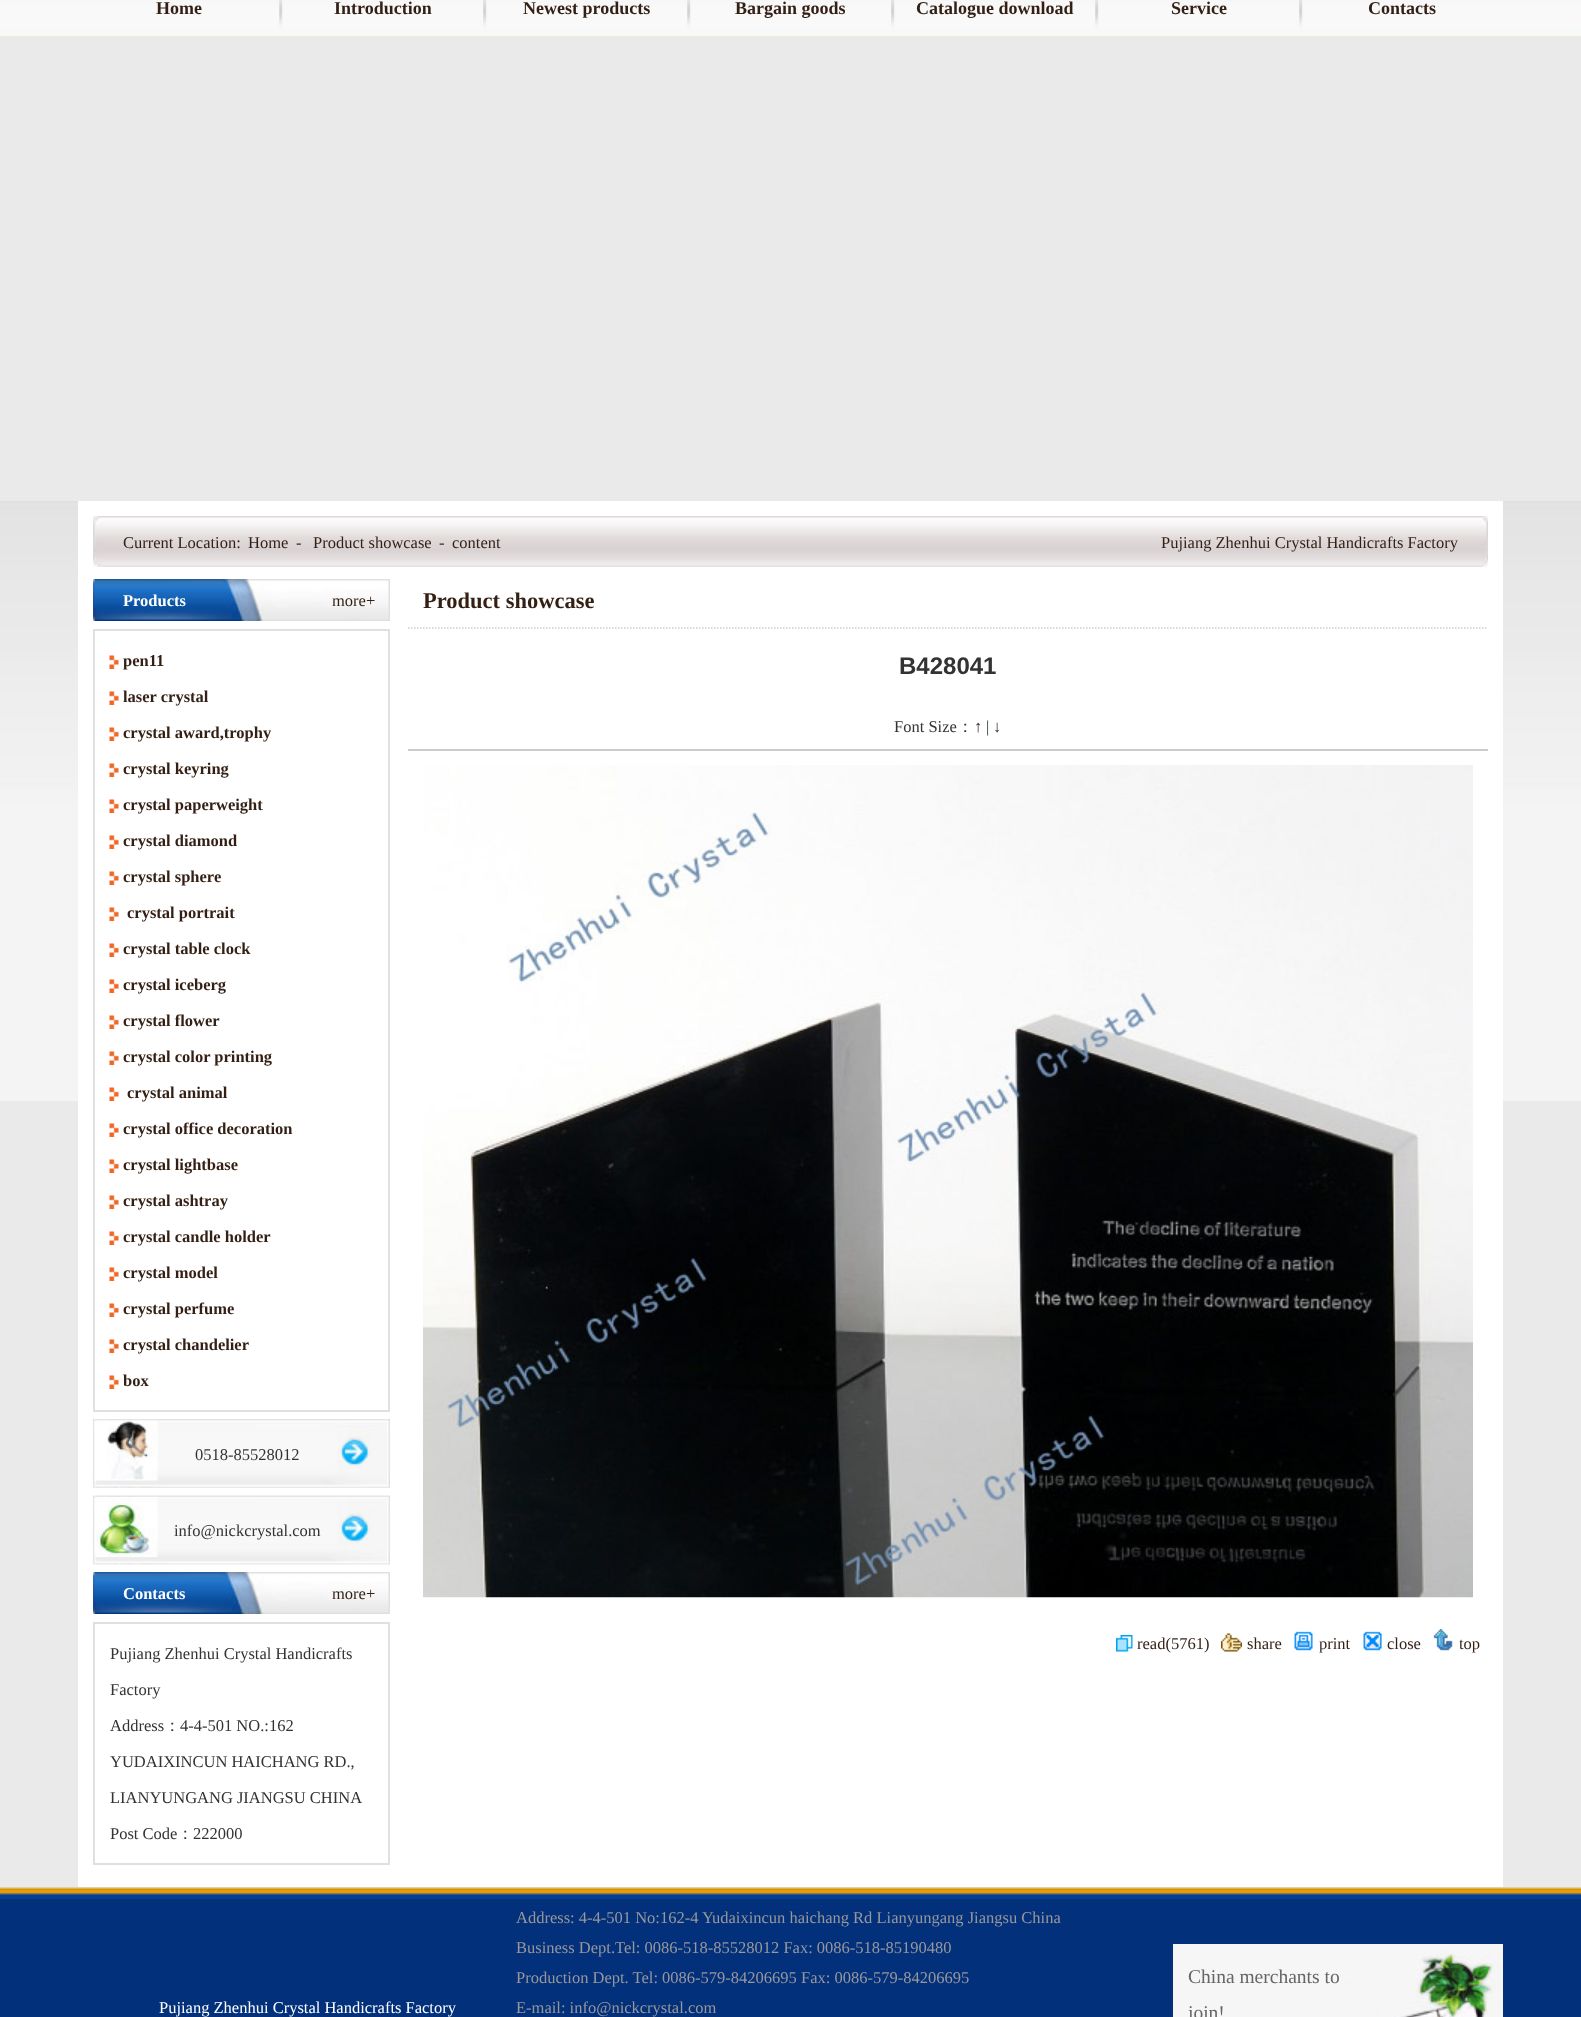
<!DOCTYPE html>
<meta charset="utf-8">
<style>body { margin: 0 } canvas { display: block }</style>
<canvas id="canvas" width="1581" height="2017"></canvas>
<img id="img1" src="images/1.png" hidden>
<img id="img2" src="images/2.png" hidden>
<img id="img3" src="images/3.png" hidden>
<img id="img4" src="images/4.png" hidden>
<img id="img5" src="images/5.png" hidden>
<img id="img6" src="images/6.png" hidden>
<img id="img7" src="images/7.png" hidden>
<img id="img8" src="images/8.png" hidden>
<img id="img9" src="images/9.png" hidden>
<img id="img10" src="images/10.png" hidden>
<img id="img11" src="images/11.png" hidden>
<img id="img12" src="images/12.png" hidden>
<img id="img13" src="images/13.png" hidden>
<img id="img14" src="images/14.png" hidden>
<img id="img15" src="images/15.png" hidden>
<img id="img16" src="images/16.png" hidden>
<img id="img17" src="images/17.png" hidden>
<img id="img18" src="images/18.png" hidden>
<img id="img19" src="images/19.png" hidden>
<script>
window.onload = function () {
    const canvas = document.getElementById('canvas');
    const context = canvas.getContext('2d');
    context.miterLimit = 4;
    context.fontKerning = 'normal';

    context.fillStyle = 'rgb(234, 234, 234)';
    context.fillRect(0, 0, 1581, 2017);
    context.drawImage(document.getElementById('img1'), 0, 501, 1581, 600);
    context.drawImage(document.getElementById('img2'), 0, 0, 1581, 36);
    context.drawImage(document.getElementById('img3'), 279, 0, 5, 35);
    context.drawImage(document.getElementById('img3'), 483, 0, 5, 35);
    context.drawImage(document.getElementById('img4'), 687, 0, 5, 35);
    context.drawImage(document.getElementById('img3'), 891, 0, 5, 35);
    context.drawImage(document.getElementById('img3'), 1095, 0, 5, 35);
    context.drawImage(document.getElementById('img4'), 1299, 0, 5, 35);
    context.fillStyle = 'rgb(255, 255, 255)';
    context.fillRect(78, 501, 1425, 1386);
    context.drawImage(document.getElementById('img5'), 93, 516, 1395, 51);
    context.drawImage(document.getElementById('img6'), 93, 579, 297, 42);
    context.strokeStyle = 'rgb(224, 224, 224)';
    context.lineWidth = 2;
    context.strokeRect(94, 630, 295, 781);
    context.drawImage(document.getElementById('img7'), 109, 655, 10, 14);
    context.drawImage(document.getElementById('img7'), 109, 691, 10, 14);
    context.drawImage(document.getElementById('img7'), 109, 727, 10, 14);
    context.drawImage(document.getElementById('img7'), 109, 763, 10, 14);
    context.drawImage(document.getElementById('img7'), 109, 799, 10, 14);
    context.drawImage(document.getElementById('img7'), 109, 835, 10, 14);
    context.drawImage(document.getElementById('img7'), 109, 871, 10, 14);
    context.drawImage(document.getElementById('img7'), 109, 907, 10, 14);
    context.drawImage(document.getElementById('img7'), 109, 943, 10, 14);
    context.drawImage(document.getElementById('img7'), 109, 979, 10, 14);
    context.drawImage(document.getElementById('img7'), 109, 1015, 10, 14);
    context.drawImage(document.getElementById('img7'), 109, 1051, 10, 14);
    context.drawImage(document.getElementById('img7'), 109, 1087, 10, 14);
    context.drawImage(document.getElementById('img7'), 109, 1123, 10, 14);
    context.drawImage(document.getElementById('img7'), 109, 1159, 10, 14);
    context.drawImage(document.getElementById('img7'), 109, 1195, 10, 14);
    context.drawImage(document.getElementById('img7'), 109, 1231, 10, 14);
    context.drawImage(document.getElementById('img7'), 109, 1267, 10, 14);
    context.drawImage(document.getElementById('img7'), 109, 1303, 10, 14);
    context.drawImage(document.getElementById('img7'), 109, 1339, 10, 14);
    context.drawImage(document.getElementById('img7'), 109, 1375, 10, 14);
    context.drawImage(document.getElementById('img8'), 93, 1419, 297, 69);
    context.drawImage(document.getElementById('img9'), 94, 1420, 64, 61);
    context.drawImage(document.getElementById('img10'), 93, 1495, 297, 70);
    context.drawImage(document.getElementById('img11'), 94, 1497, 64, 60);
    context.drawImage(document.getElementById('img6'), 93, 1572, 297, 42);
    context.strokeRect(94, 1623, 295, 241);
    context.beginPath();
    context.moveTo(408, 628);
    context.lineTo(1488, 628);
    context.strokeStyle = 'rgb(204, 204, 204)';
    context.lineWidth = 1.5;
    context.setLineDash([1.5, 1.5]);
    context.stroke();
    context.fillStyle = 'rgb(204, 204, 204)';
    context.fillRect(408, 749, 1080, 2);
    context.drawImage(document.getElementById('img12'), 423, 765, 1050, 833);
    context.drawImage(document.getElementById('img13'), 1116, 1635, 17, 17);
    context.drawImage(document.getElementById('img14'), 1221, 1633, 21, 19);
    context.drawImage(document.getElementById('img15'), 1294, 1631, 19, 20);
    context.drawImage(document.getElementById('img16'), 1363, 1631, 19, 20);
    context.drawImage(document.getElementById('img17'), 1433, 1629, 20, 22);
    context.drawImage(document.getElementById('img18'), 0, 1887, 1581, 130);
    context.drawImage(document.getElementById('img19'), 1173, 1944, 330, 73);
    context.font = 'bold 18px Liberation Serif';
    context.fillStyle = 'rgb(51, 31, 20)';
    context.fillText('Home', 156, 14);
    context.fillText('Introduction', 334, 14);
    context.fillText('Newest products', 523, 14);
    context.fillText('Bargain goods', 735, 14);
    context.fillText('Catalogue download', 916, 14);
    context.fillText('Service', 1171, 14);
    context.fillText('Contacts', 1368, 14);
    context.font = '16.5px Liberation Serif';
    context.fillText('Current Location:', 123, 548);
    context.fillText('Home', 248, 548);
    context.fillText('-', 296, 548);
    context.fillText('Product showcase', 313, 548);
    context.fillText('-', 439, 548);
    context.fillText('content', 452, 548);
    context.fillText('Pujiang Zhenhui Crystal Handicrafts Factory', 1161, 548);
    context.font = 'bold 16.5px Liberation Serif';
    context.fillStyle = 'rgb(255, 255, 255)';
    context.fillText('Products', 123, 606);
    context.font = '16.5px Liberation Serif';
    context.fillStyle = 'rgb(51, 31, 20)';
    context.fillText('more+', 332, 606);
    context.font = 'bold 16.5px Liberation Serif';
    context.fillText('pen11', 123, 666);
    context.fillText('laser crystal', 123, 702);
    context.fillText('crystal award,trophy', 123, 738);
    context.fillText('crystal keyring', 123, 774);
    context.fillText('crystal paperweight', 123, 810);
    context.fillText('crystal diamond', 123, 846);
    context.fillText('crystal sphere', 123, 882);
    context.fillText('crystal portrait', 127, 918);
    context.fillText('crystal table clock', 123, 954);
    context.fillText('crystal iceberg', 123, 990);
    context.fillText('crystal flower', 123, 1026);
    context.fillText('crystal color printing', 123, 1062);
    context.fillText('crystal animal', 127, 1098);
    context.fillText('crystal office decoration', 123, 1134);
    context.fillText('crystal lightbase', 123, 1170);
    context.fillText('crystal ashtray', 123, 1206);
    context.fillText('crystal candle holder', 123, 1242);
    context.fillText('crystal model', 123, 1278);
    context.fillText('crystal perfume', 123, 1314);
    context.fillText('crystal chandelier', 123, 1350);
    context.fillText('box', 123, 1386);
    context.font = '16.5px Liberation Serif';
    context.fillStyle = 'rgb(51, 51, 51)';
    context.fillText('0518-85528012', 195, 1460);
    context.fillText('info@nickcrystal.com', 174, 1536);
    context.font = 'bold 16.5px Liberation Serif';
    context.fillStyle = 'rgb(255, 255, 255)';
    context.fillText('Contacts', 123, 1599);
    context.font = '16.5px Liberation Serif';
    context.fillStyle = 'rgb(51, 31, 20)';
    context.fillText('more+', 332, 1599);
    context.fillStyle = 'rgb(51, 51, 51)';
    context.fillText('Pujiang Zhenhui Crystal Handicrafts', 110, 1659);
    context.fillText('Factory', 110, 1695);
    context.fillText('Address', 110, 1731);
    context.font = '500 16.5px WenQuanYi Zen Hei';
    context.fillText('：', 164, 1731);
    context.font = '16.5px Liberation Serif';
    context.fillText('4-4-501 NO.:162', 180, 1731);
    context.fillText('YUDAIXINCUN HAICHANG RD.,', 110, 1767);
    context.fillText('LIANYUNGANG JIANGSU CHINA', 110, 1803);
    context.fillText('Post Code', 110, 1839);
    context.font = '500 16.5px WenQuanYi Zen Hei';
    context.fillText('：', 177, 1839);
    context.font = '16.5px Liberation Serif';
    context.fillText('222000', 193, 1839);
    context.font = 'bold 22.5px Liberation Serif';
    context.fillStyle = 'rgb(51, 31, 20)';
    context.fillText('Product showcase', 423, 608);
    context.font = 'bold 24px Liberation Sans';
    context.fillStyle = 'rgb(51, 51, 51)';
    context.fillText('B428041', 899, 674);
    context.font = '16.5px Liberation Serif';
    context.fillText('Font Size', 894, 732);
    context.font = '500 16.5px WenQuanYi Zen Hei';
    context.fillText('：', 957, 732);
    context.font = '16.5px Liberation Serif';
    context.fillStyle = 'rgb(51, 31, 20)';
    context.fillText('↑', 974, 732);
    context.fillStyle = 'rgb(51, 51, 51)';
    context.fillText('|', 986, 732);
    context.fillStyle = 'rgb(51, 31, 20)';
    context.fillText('↓', 993, 732);
    context.fillText('read(5761)', 1137, 1649);
    context.fillText('share', 1247, 1649);
    context.fillText('print', 1319, 1649);
    context.fillText('close', 1387, 1649);
    context.fillText('top', 1459, 1649);
    context.fillStyle = 'rgb(255, 255, 255)';
    context.fillText('Pujiang Zhenhui Crystal Handicrafts Factory', 159, 2013);
    context.fillStyle = 'rgb(152, 151, 156)';
    context.fillText('Address: 4-4-501 No:162-4 Yudaixincun haichang Rd Lianyungang Jiangsu China', 516, 1923);
    context.fillText('Business Dept.Tel: 0086-518-85528012 Fax: 0086-518-85190480', 516, 1953);
    context.fillText('Production Dept. Tel: 0086-579-84206695 Fax: 0086-579-84206695', 516, 1983);
    context.fillText('E-mail: info@nickcrystal.com', 516, 2013);
    context.font = '19.5px Liberation Serif';
    context.fillStyle = 'rgb(102, 102, 102)';
    context.fillText('China merchants to', 1188, 1983);
    context.fillText('join!', 1188, 2019);
};
</script>
